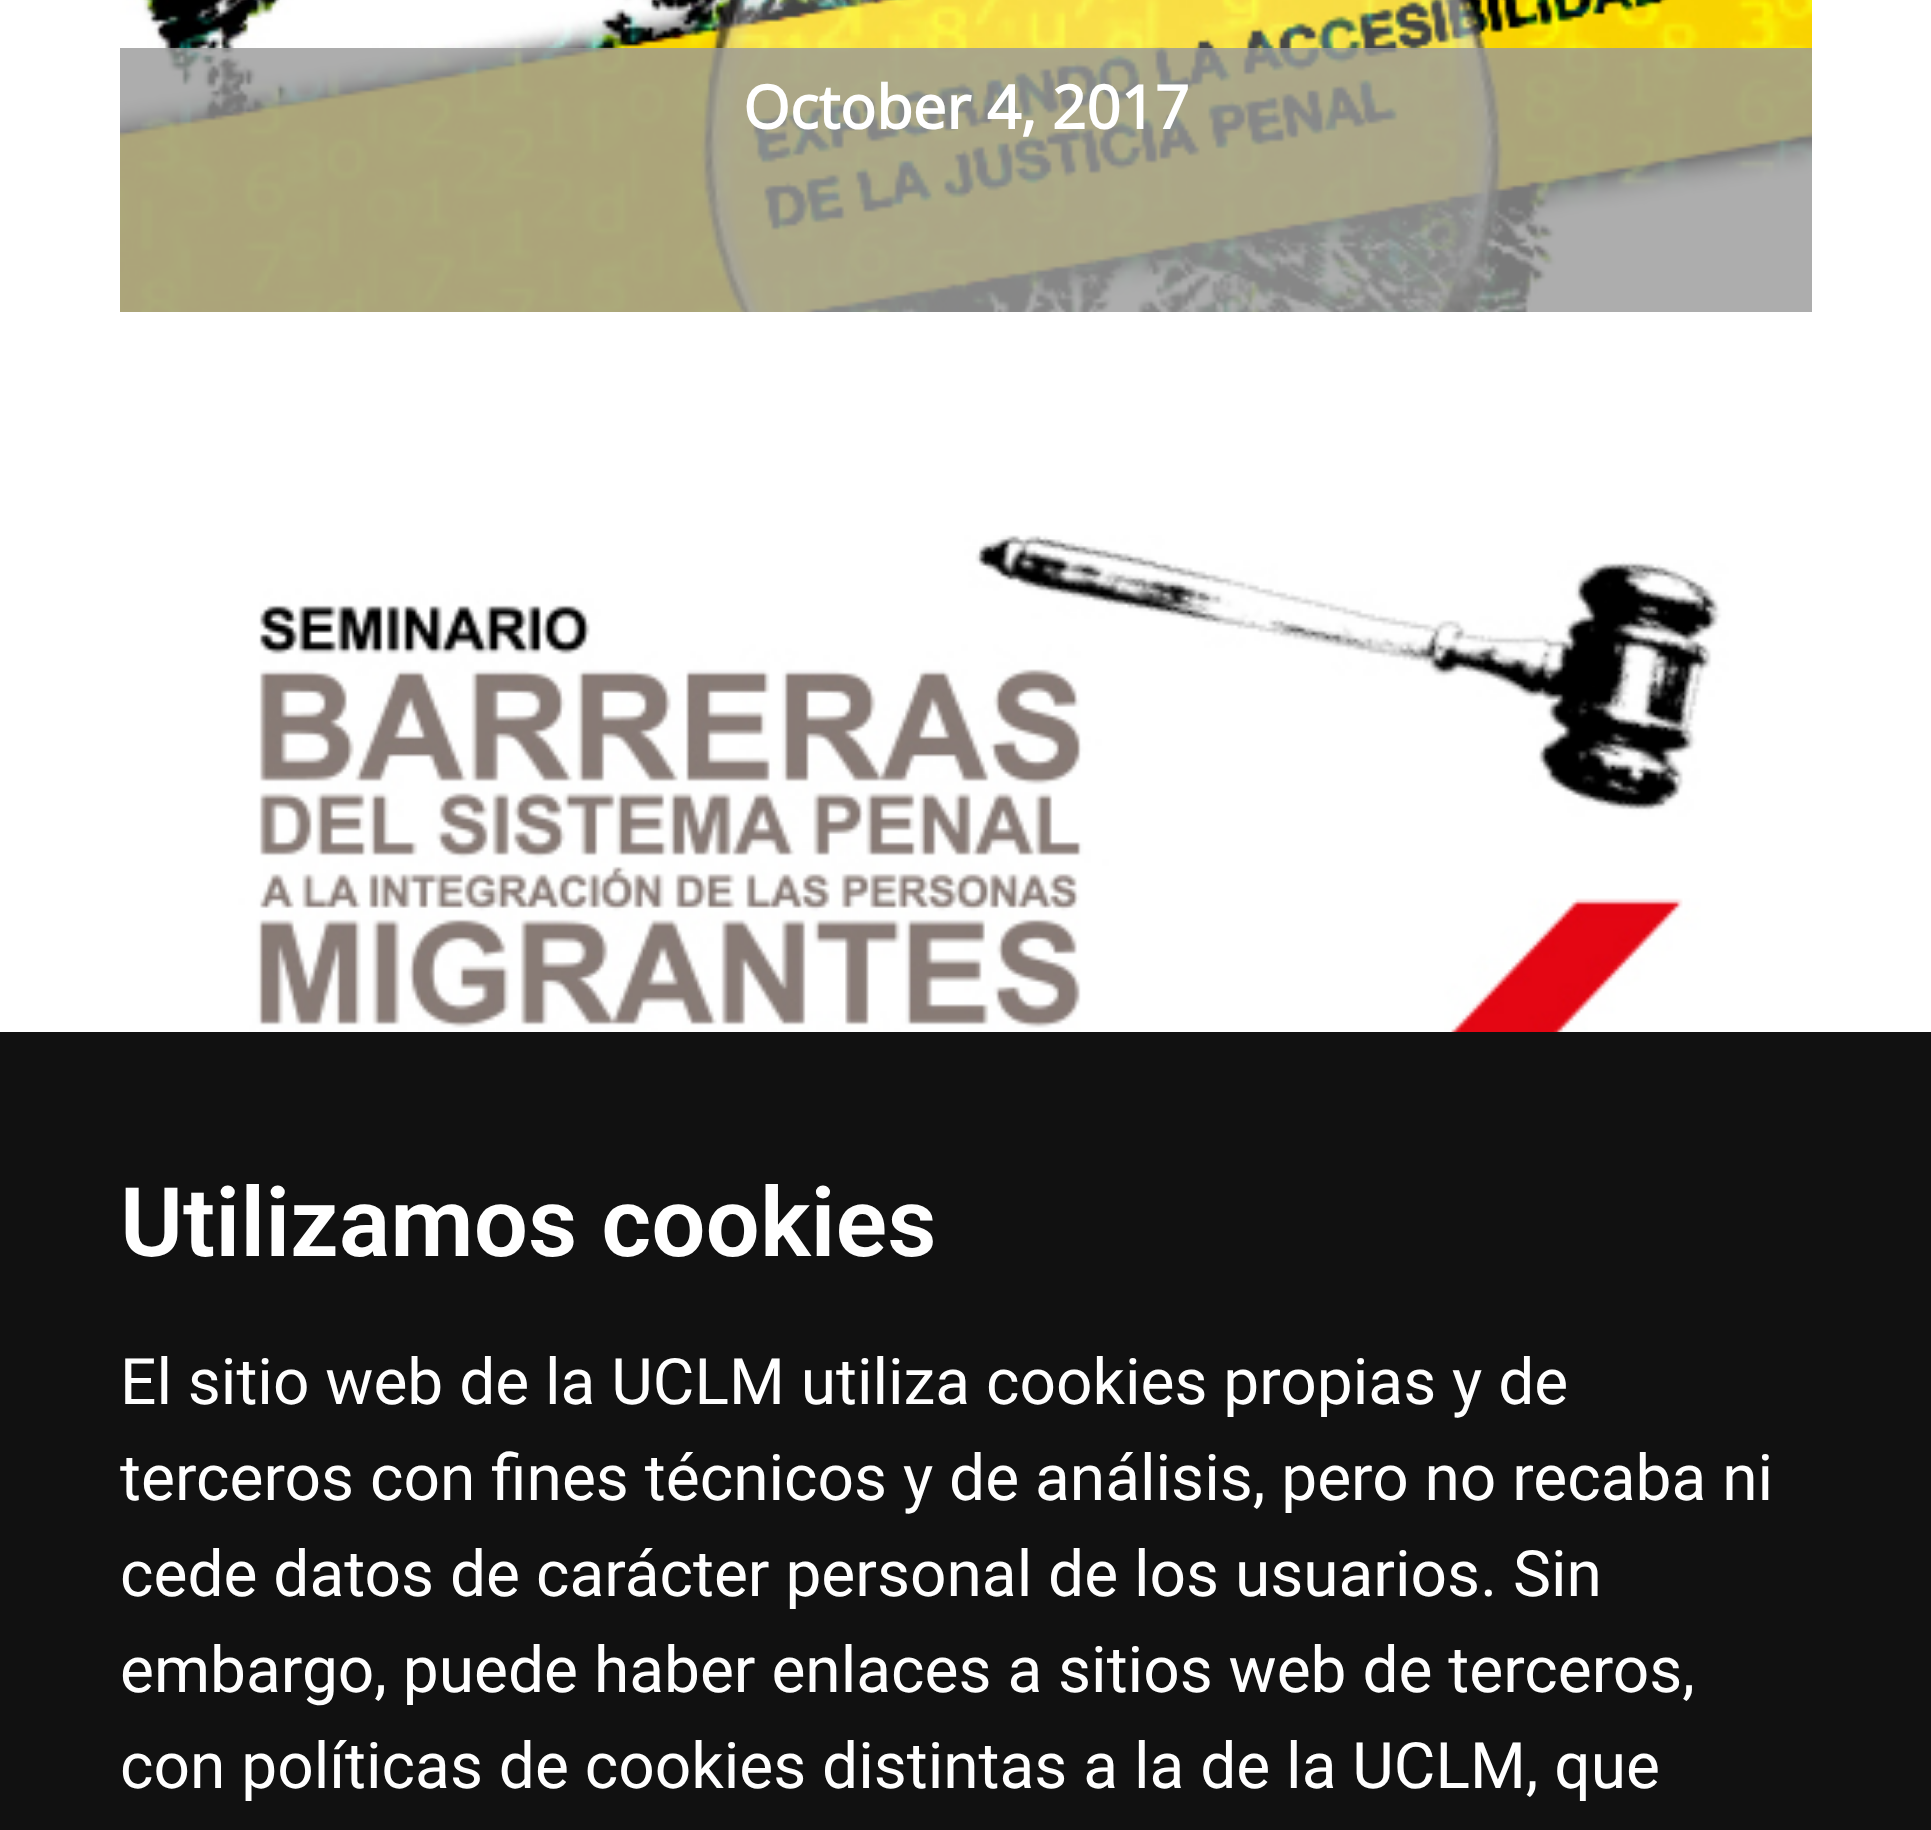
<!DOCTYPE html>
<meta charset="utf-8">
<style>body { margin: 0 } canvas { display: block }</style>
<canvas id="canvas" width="1931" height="1830"></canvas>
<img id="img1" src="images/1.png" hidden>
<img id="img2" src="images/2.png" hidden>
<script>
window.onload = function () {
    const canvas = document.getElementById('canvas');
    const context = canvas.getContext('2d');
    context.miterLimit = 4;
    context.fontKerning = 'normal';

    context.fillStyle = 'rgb(255, 255, 255)';
    context.fillRect(0, 0, 1931, 1830);
    context.drawImage(document.getElementById('img1'), 120, 0, 1692, 312);
    context.fillStyle = 'rgba(153, 153, 153, 0.8)';
    context.fillRect(120, 48, 1692, 264);
    context.drawImage(document.getElementById('img2'), 120, 535, 1692, 497);
    context.fillStyle = 'rgb(17, 17, 17)';
    context.fillRect(0, 1032, 1931, 798);
    context.font = 'bold 60px Open Sans';
    context.fillStyle = 'rgb(255, 255, 255)';
    context.fillText('October 4, 2017', 743, 129);
    context.font = '600 96px Roboto';
    context.fillText('Utilizamos cookies', 120, 1256);
    context.font = '64px Roboto';
    context.fillText('El sitio web de la UCLM utiliza cookies propias y de', 120, 1404);
    context.fillText('terceros con fines técnicos y de análisis, pero no recaba ni', 120, 1500);
    context.fillText('cede datos de carácter personal de los usuarios. Sin', 120, 1596);
    context.fillText('embargo, puede haber enlaces a sitios web de terceros,', 120, 1692);
    context.fillText('con políticas de cookies distintas a la de la UCLM, que', 120, 1788);
};
</script>
